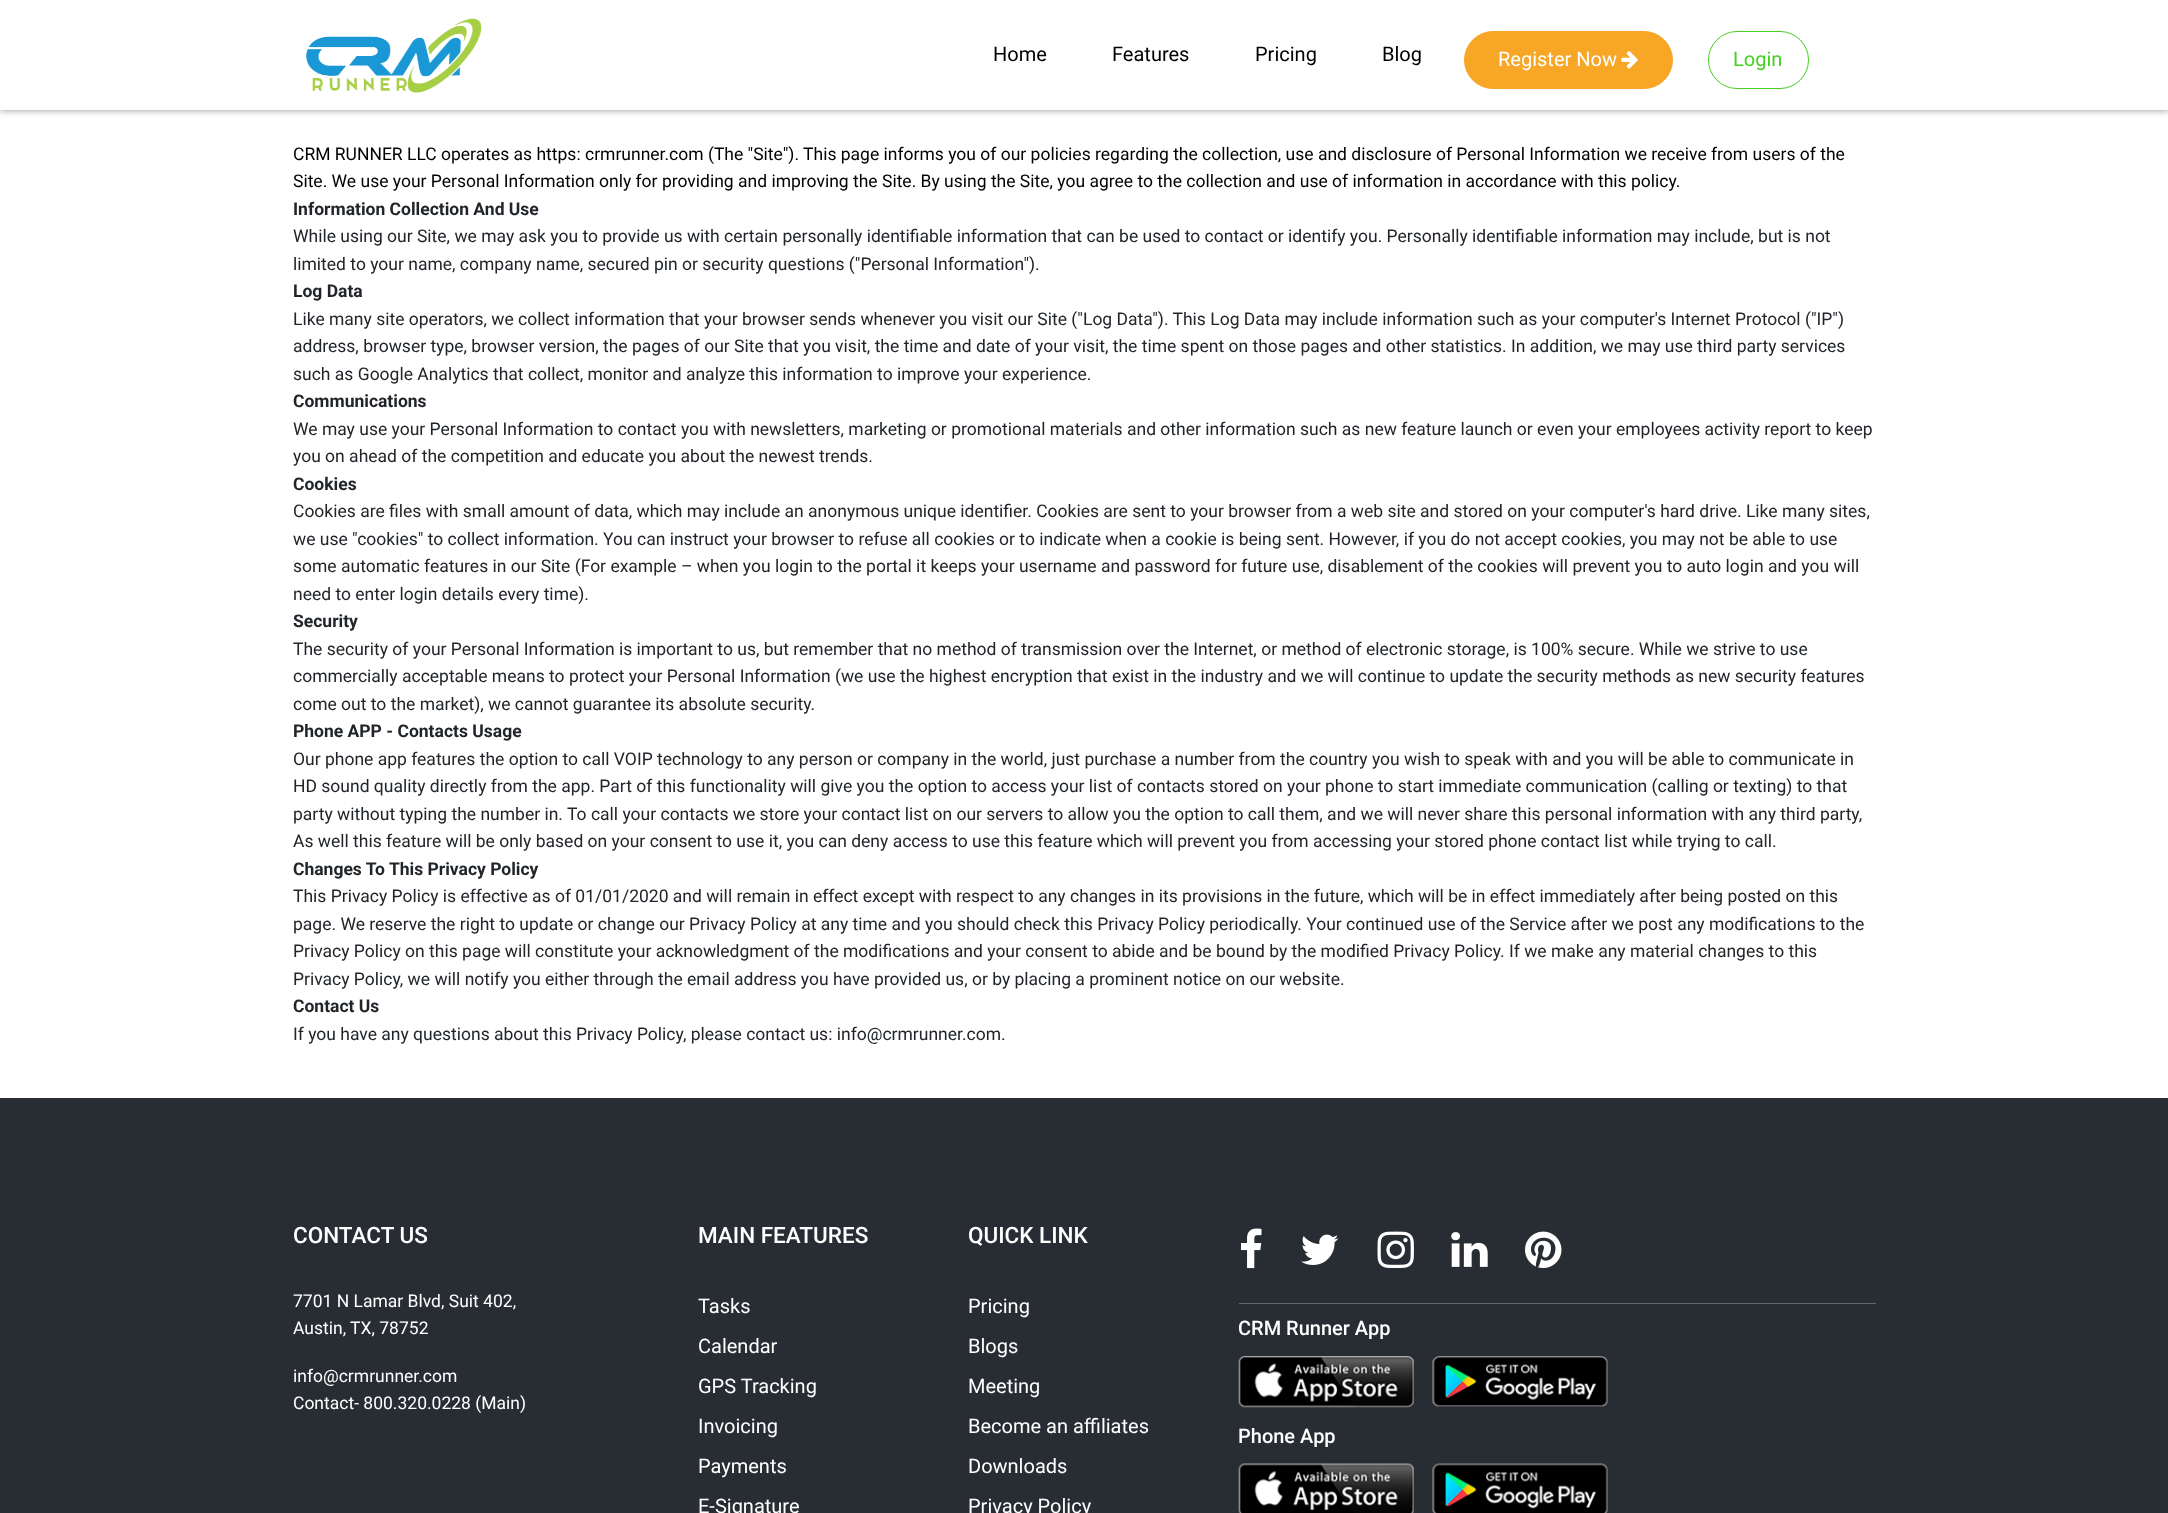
<!DOCTYPE html>
<meta charset="utf-8">
<style>body { margin: 0 } canvas { display: block }</style>
<canvas id="canvas" width="2168" height="1513"></canvas>
<img id="img1" src="images/1.png" hidden>
<img id="img2" src="images/2.png" hidden>
<img id="img3" src="images/3.png" hidden>
<img id="img4" src="images/4.png" hidden>
<img id="img5" src="images/5.png" hidden>
<img id="img6" src="images/6.png" hidden>
<img id="img7" src="images/7.png" hidden>
<img id="img8" src="images/8.png" hidden>
<img id="img9" src="images/9.png" hidden>
<img id="img10" src="images/10.png" hidden>
<img id="img11" src="images/11.png" hidden>
<script>
window.onload = function () {
    const canvas = document.getElementById('canvas');
    const context = canvas.getContext('2d');
    context.miterLimit = 4;
    context.fontKerning = 'normal';

    context.fillStyle = 'rgb(255, 255, 255)';
    context.fillRect(0, 0, 2168, 1513);
    context.fillStyle = 'rgb(167, 167, 167)';
    context.filter = 'blur(3px)';
    context.beginPath();
    context.rect(0, 1, 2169, 110);
    context.fill();
    context.filter = 'none';
    context.fillStyle = 'rgb(255, 255, 255)';
    context.fillRect(0, 0, 2168, 110);
    context.drawImage(document.getElementById('img1'), 306, 18, 176, 75);
    context.fillStyle = 'rgb(248, 166, 38)';
    context.beginPath();
    context.roundRect(1464.5, 31.5, 208, 57, 28.5);
    context.fill();
    context.strokeStyle = 'rgb(248, 166, 38)';
    context.stroke();
    context.drawImage(document.getElementById('img2'), 1621, 51, 17, 18);
    context.beginPath();
    context.roundRect(1708.5, 31.5, 100, 57, 28.5);
    context.strokeStyle = 'rgb(70, 208, 33)';
    context.stroke();
    context.fillStyle = 'rgb(40, 44, 51)';
    context.fillRect(0, 1098, 2168, 415);
    context.drawImage(document.getElementById('img3'), 1241, 1228, 21, 41);
    context.drawImage(document.getElementById('img4'), 1301, 1234, 38, 31);
    context.drawImage(document.getElementById('img5'), 1377, 1231, 37, 37);
    context.drawImage(document.getElementById('img6'), 1451, 1232, 37, 35);
    context.drawImage(document.getElementById('img7'), 1525, 1231, 37, 37);
    context.fillStyle = 'rgb(102, 102, 102)';
    context.fillRect(1239, 1303, 637, 1);
    context.drawImage(document.getElementById('img8'), 1238, 1356, 176, 52);
    context.drawImage(document.getElementById('img9'), 1432, 1356, 176, 51);
    context.drawImage(document.getElementById('img10'), 1238, 1463, 176, 50);
    context.drawImage(document.getElementById('img11'), 1432, 1463, 176, 50);
    context.font = '20px Roboto';
    context.fillStyle = 'rgb(0, 0, 0)';
    context.fillText('Home', 993, 61);
    context.fillText('Features', 1112, 61);
    context.fillText('Pricing', 1255, 61);
    context.fillText('Blog', 1382, 61);
    context.fillStyle = 'rgb(255, 255, 255)';
    context.fillText('Register Now', 1498, 66);
    context.fillStyle = 'rgb(70, 208, 33)';
    context.fillText('Login', 1733, 66);
    context.font = '17.5px Roboto';
    context.fillStyle = 'rgb(0, 0, 0)';
    context.fillText('CRM RUNNER LLC operates as https: crmrunner.com (The "Site"). This page informs you of our policies regarding the collection, use and disclosure of Personal Information we receive from users of the', 293, 160);
    context.fillText('Site. We use your Personal Information only for providing and improving the Site. By using the Site, you agree to the collection and use of information in accordance with this policy.', 293, 187);
    context.font = 'bold 17.5px Roboto';
    context.fillStyle = 'rgb(33, 37, 41)';
    context.fillText('Information Collection And Use', 293, 215);
    context.font = '17.5px Roboto';
    context.fillText('While using our Site, we may ask you to provide us with certain personally identifiable information that can be used to contact or identify you. Personally identifiable information may include, but is not', 293, 242);
    context.fillText('limited to your name, company name, secured pin or security questions ("Personal Information").', 293, 270);
    context.font = 'bold 17.5px Roboto';
    context.fillText('Log Data', 293, 297);
    context.font = '17.5px Roboto';
    context.fillText('Like many site operators, we collect information that your browser sends whenever you visit our Site ("Log Data"). This Log Data may include information such as your computer\'s Internet Protocol ("IP")', 293, 325);
    context.fillText('address, browser type, browser version, the pages of our Site that you visit, the time and date of your visit, the time spent on those pages and other statistics. In addition, we may use third party services', 293, 352);
    context.fillText('such as Google Analytics that collect, monitor and analyze this information to improve your experience.', 293, 380);
    context.font = 'bold 17.5px Roboto';
    context.fillText('Communications', 293, 407);
    context.font = '17.5px Roboto';
    context.fillText('We may use your Personal Information to contact you with newsletters, marketing or promotional materials and other information such as new feature launch or even your employees activity report to keep', 293, 435);
    context.fillText('you on ahead of the competition and educate you about the newest trends.', 293, 462);
    context.font = 'bold 17.5px Roboto';
    context.fillText('Cookies', 293, 490);
    context.font = '17.5px Roboto';
    context.fillText('Cookies are files with small amount of data, which may include an anonymous unique identifier. Cookies are sent to your browser from a web site and stored on your computer\'s hard drive. Like many sites,', 293, 517);
    context.fillText('we use "cookies" to collect information. You can instruct your browser to refuse all cookies or to indicate when a cookie is being sent. However, if you do not accept cookies, you may not be able to use', 293, 545);
    context.fillText('some automatic features in our Site (For example – when you login to the portal it keeps your username and password for future use, disablement of the cookies will prevent you to auto login and you will', 293, 572);
    context.fillText('need to enter login details every time).', 293, 600);
    context.font = 'bold 17.5px Roboto';
    context.fillText('Security', 293, 627);
    context.font = '17.5px Roboto';
    context.fillText('The security of your Personal Information is important to us, but remember that no method of transmission over the Internet, or method of electronic storage, is 100% secure. While we strive to use', 293, 655);
    context.fillText('commercially acceptable means to protect your Personal Information (we use the highest encryption that exist in the industry and we will continue to update the security methods as new security features', 293, 682);
    context.fillText('come out to the market), we cannot guarantee its absolute security.', 293, 710);
    context.font = 'bold 17.5px Roboto';
    context.fillText('Phone APP - Contacts Usage', 293, 737);
    context.font = '17.5px Roboto';
    context.fillText('Our phone app features the option to call VOIP technology to any person or company in the world, just purchase a number from the country you wish to speak with and you will be able to communicate in', 293, 765);
    context.fillText('HD sound quality directly from the app. Part of this functionality will give you the option to access your list of contacts stored on your phone to start immediate communication (calling or texting) to that', 293, 792);
    context.fillText('party without typing the number in. To call your contacts we store your contact list on our servers to allow you the option to call them, and we will never share this personal information with any third party,', 293, 820);
    context.fillText('As well this feature will be only based on your consent to use it, you can deny access to use this feature which will prevent you from accessing your stored phone contact list while trying to call.', 293, 847);
    context.font = 'bold 17.5px Roboto';
    context.fillText('Changes To This Privacy Policy', 293, 875);
    context.font = '17.5px Roboto';
    context.fillText('This Privacy Policy is effective as of 01/01/2020 and will remain in effect except with respect to any changes in its provisions in the future, which will be in effect immediately after being posted on this', 293, 902);
    context.fillText('page. We reserve the right to update or change our Privacy Policy at any time and you should check this Privacy Policy periodically. Your continued use of the Service after we post any modifications to the', 293, 930);
    context.fillText('Privacy Policy on this page will constitute your acknowledgment of the modifications and your consent to abide and be bound by the modified Privacy Policy. If we make any material changes to this', 293, 957);
    context.fillText('Privacy Policy, we will notify you either through the email address you have provided us, or by placing a prominent notice on our website.', 293, 985);
    context.font = 'bold 17.5px Roboto';
    context.fillText('Contact Us', 293, 1012);
    context.font = '17.5px Roboto';
    context.fillText('If you have any questions about this Privacy Policy, please contact us: info@crmrunner.com.', 293, 1040);
    context.font = '500 22.5px Roboto';
    context.fillStyle = 'rgb(255, 255, 255)';
    context.fillText('CONTACT US', 293, 1243);
    context.font = '17.5px Roboto';
    context.fillText('7701 N Lamar Blvd, Suit 402,', 293, 1307);
    context.fillText('Austin, TX, 78752', 293, 1334);
    context.fillText('info@crmrunner.com', 293, 1382);
    context.fillText('Contact- 800.320.0228 (Main)', 293, 1409);
    context.font = '500 22.5px Roboto';
    context.fillText('MAIN FEATURES', 698, 1243);
    context.font = '20px Roboto';
    context.fillText('Tasks', 698, 1313);
    context.fillText('Calendar', 698, 1353);
    context.fillText('GPS Tracking', 698, 1393);
    context.fillText('Invoicing', 698, 1433);
    context.fillText('Payments', 698, 1473);
    context.fillText('E-Signature', 698, 1513);
    context.font = '500 22.5px Roboto';
    context.fillText('QUICK LINK', 968, 1243);
    context.font = '20px Roboto';
    context.fillText('Pricing', 968, 1313);
    context.fillText('Blogs', 968, 1353);
    context.fillText('Meeting', 968, 1393);
    context.fillText('Become an affiliates', 968, 1433);
    context.fillText('Downloads', 968, 1473);
    context.fillText('Privacy Policy', 968, 1513);
    context.font = '500 20px Roboto';
    context.fillText('CRM Runner App', 1238, 1335);
    context.fillText('Phone App', 1238, 1443);
};
</script>
